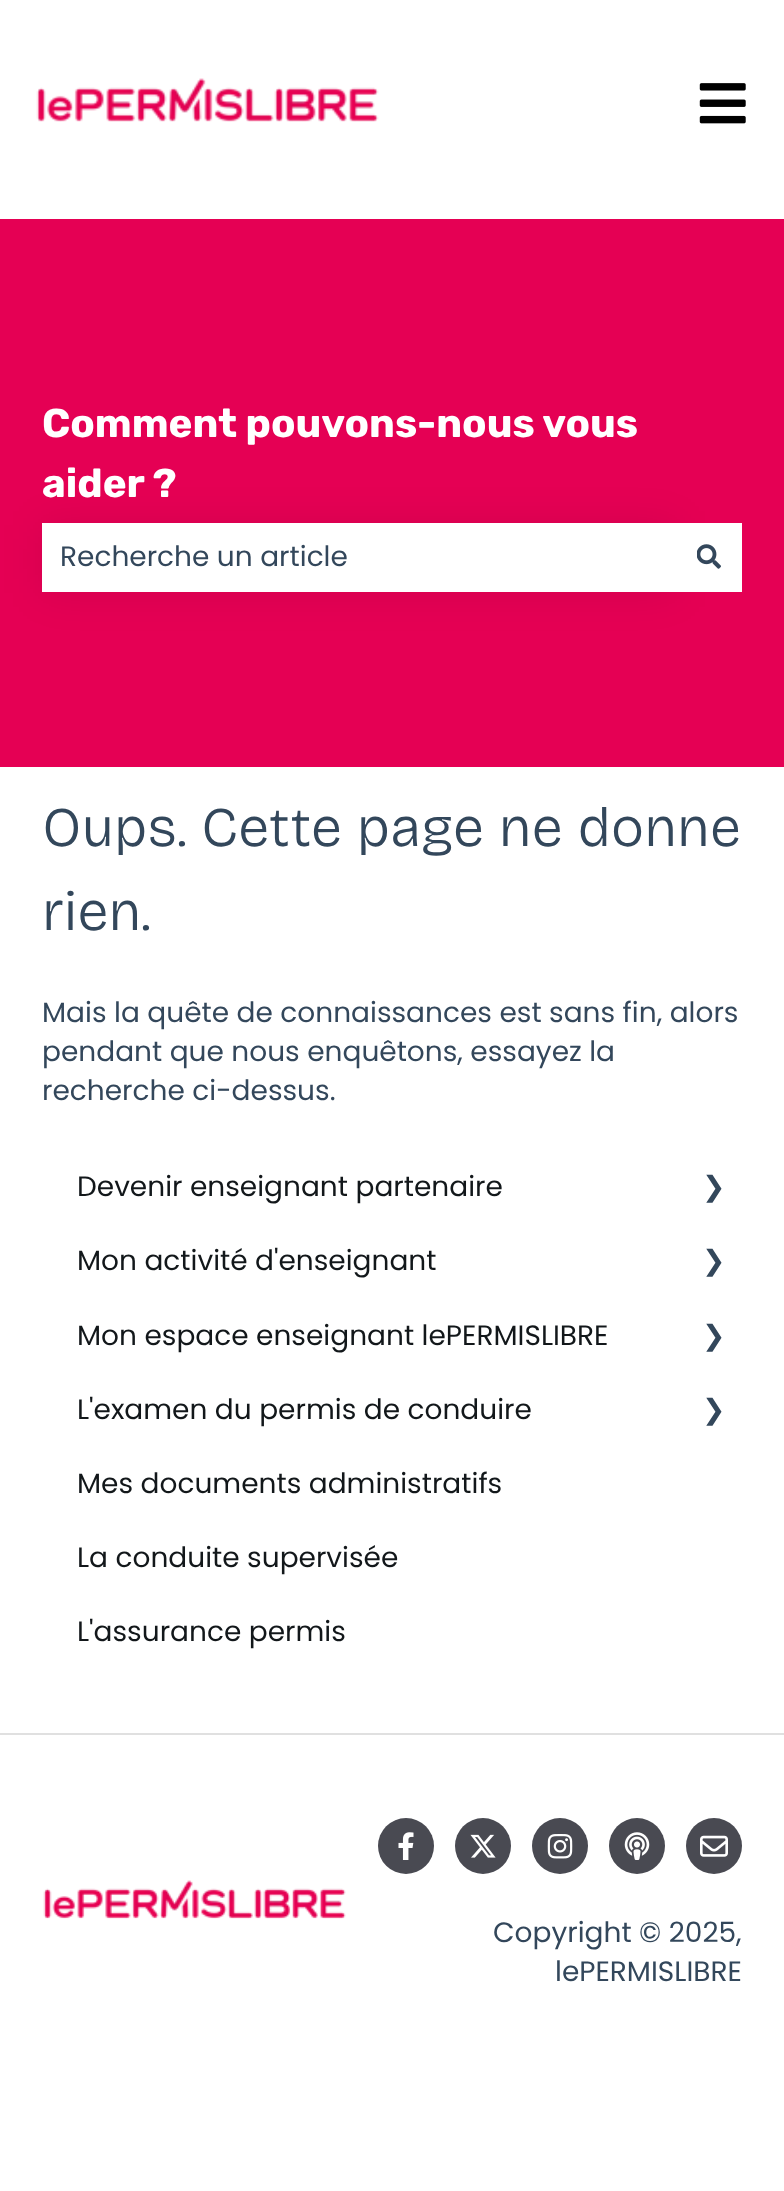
<!DOCTYPE html>
<meta charset="utf-8">
<style>body { margin: 0 } canvas { display: block }</style>
<canvas id="canvas" width="784" height="2191"></canvas>
<img id="img1" src="images/1.png" hidden>
<img id="img2" src="images/2.png" hidden>
<img id="img3" src="images/3.png" hidden>
<img id="img4" src="images/4.png" hidden>
<img id="img5" src="images/5.png" hidden>
<img id="img6" src="images/6.png" hidden>
<img id="img7" src="images/7.png" hidden>
<img id="img8" src="images/8.png" hidden>
<img id="img9" src="images/9.png" hidden>
<script>
window.onload = function () {
    const canvas = document.getElementById('canvas');
    const context = canvas.getContext('2d');
    context.miterLimit = 4;
    context.fontKerning = 'normal';

    context.fillStyle = 'rgb(255, 255, 255)';
    context.fillRect(0, 0, 784, 2191);
    context.drawImage(document.getElementById('img1'), 36, 78, 343, 44);
    context.drawImage(document.getElementById('img2'), 699, 83, 47, 41);
    context.fillStyle = 'rgb(229, 0, 84)';
    context.fillRect(0, 219, 784, 548);
    context.fillStyle = 'rgba(0, 0, 0, 0.08)';
    context.filter = 'blur(21px)';
    context.beginPath();
    context.rect(42, 525, 634, 68);
    context.fill();
    context.filter = 'none';
    context.fillStyle = 'rgb(255, 255, 255)';
    context.fillRect(42, 523, 700, 69);
    context.drawImage(document.getElementById('img3'), 697, 544, 24, 25);
    context.fillStyle = 'rgb(224, 224, 224)';
    context.fillRect(0, 1733, 784, 2);
    context.drawImage(document.getElementById('img4'), 43, 1880, 303, 39);
    context.fillStyle = 'rgb(73, 74, 82)';
    context.beginPath();
    context.arc(406, 1846, 28, 0, 2 * Math.PI);
    context.fill();
    context.drawImage(document.getElementById('img5'), 398, 1832, 16, 28);
    context.beginPath();
    context.arc(483, 1846, 28, 0, 2 * Math.PI);
    context.fill();
    context.drawImage(document.getElementById('img6'), 470, 1834, 26, 24);
    context.beginPath();
    context.arc(560, 1846, 28, 0, 2 * Math.PI);
    context.fill();
    context.drawImage(document.getElementById('img7'), 547, 1834, 26, 25);
    context.beginPath();
    context.arc(637, 1846, 28, 0, 2 * Math.PI);
    context.fill();
    context.drawImage(document.getElementById('img8'), 624, 1832, 26, 28);
    context.beginPath();
    context.arc(714, 1846, 28, 0, 2 * Math.PI);
    context.fill();
    context.drawImage(document.getElementById('img9'), 700, 1835, 28, 22);
    context.font = 'bold 40.25px Rubik';
    context.fillStyle = 'rgb(255, 255, 255)';
    context.fillText('Comment pouvons-nous vous', 42, 437);
    context.fillText('aider ?', 42, 497);
    context.font = '28px Poppins';
    context.fillStyle = 'rgb(51, 71, 91)';
    context.fillText('Recherche un article', 60, 566);
    context.font = '300 56px Bricolage Grotesque';
    context.fillText('Oups. Cette page ne donne', 42, 846);
    context.fillText('rien.', 42, 930);
    context.font = '28px Poppins';
    context.fillText('Mais la quête de connaissances est sans fin, alors', 42, 1022);
    context.fillText('pendant que nous enquêtons, essayez la', 42, 1061);
    context.fillText('recherche ci-dessus.', 42, 1100);
    context.fillStyle = 'rgb(18, 23, 26)';
    context.fillText('Devenir enseignant partenaire', 77, 1196);
    context.font = '28px DejaVu Sans';
    context.fillStyle = 'rgb(51, 71, 91)';
    context.fillText('❯', 702, 1196);
    context.font = '28px Poppins';
    context.fillStyle = 'rgb(18, 23, 26)';
    context.fillText('Mon activité d\'enseignant', 77, 1270);
    context.font = '28px DejaVu Sans';
    context.fillStyle = 'rgb(51, 71, 91)';
    context.fillText('❯', 702, 1270);
    context.font = '28px Poppins';
    context.fillStyle = 'rgb(18, 23, 26)';
    context.fillText('Mon espace enseignant lePERMISLIBRE', 77, 1345);
    context.font = '28px DejaVu Sans';
    context.fillStyle = 'rgb(51, 71, 91)';
    context.fillText('❯', 702, 1345);
    context.font = '28px Poppins';
    context.fillStyle = 'rgb(18, 23, 26)';
    context.fillText('L\'examen du permis de conduire', 77, 1419);
    context.font = '28px DejaVu Sans';
    context.fillStyle = 'rgb(51, 71, 91)';
    context.fillText('❯', 702, 1419);
    context.font = '28px Poppins';
    context.fillStyle = 'rgb(18, 23, 26)';
    context.fillText('Mes documents administratifs', 77, 1493);
    context.fillText('La conduite supervisée', 77, 1567);
    context.fillText('L\'assurance permis', 77, 1641);
    context.fillStyle = 'rgb(51, 71, 91)';
    context.fillText('Copyright © 2025,', 493, 1942);
    context.fillText('lePERMISLIBRE', 555, 1981);
};
</script>
